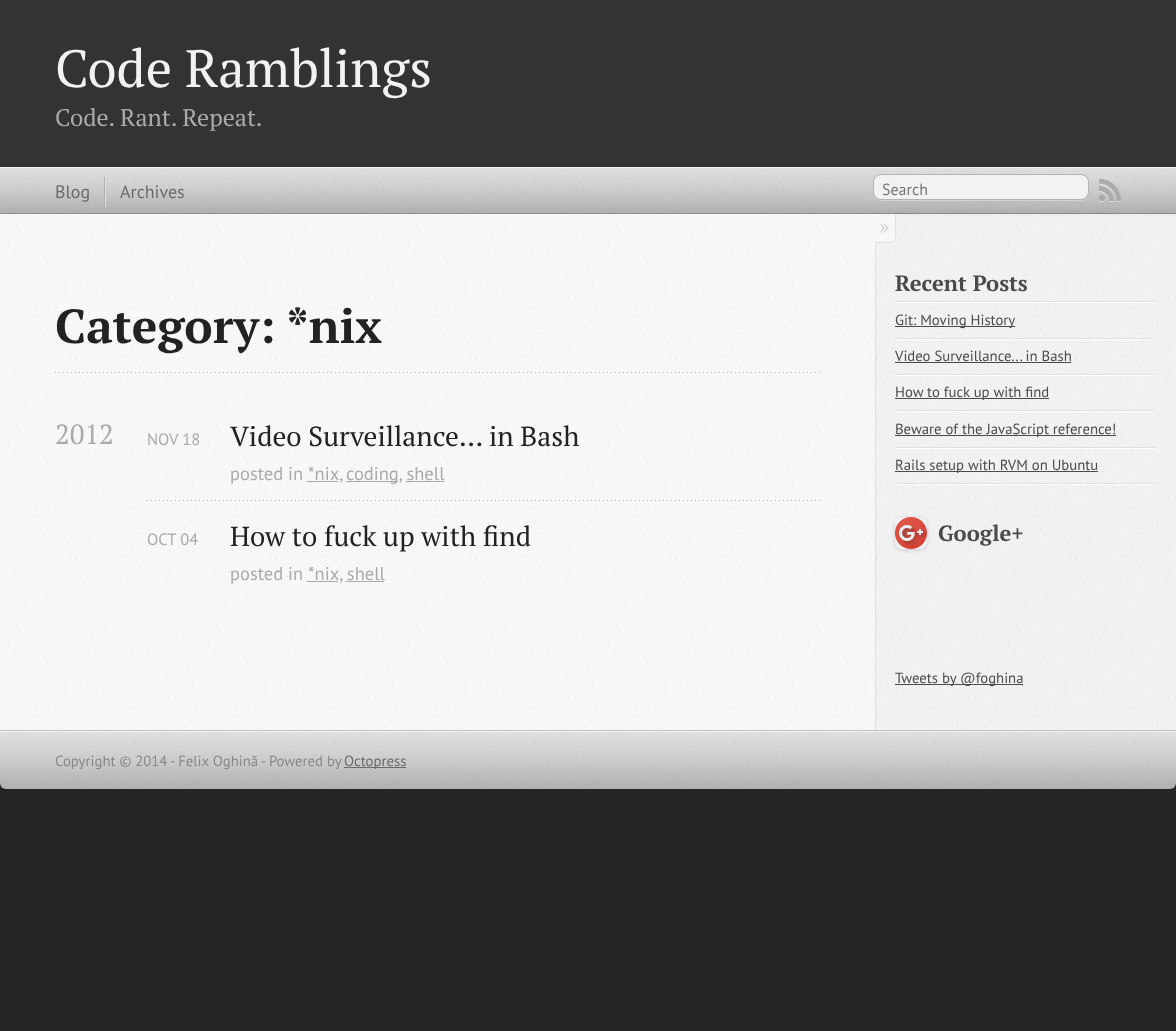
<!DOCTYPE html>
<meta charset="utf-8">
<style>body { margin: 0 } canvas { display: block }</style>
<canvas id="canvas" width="1176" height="1031"></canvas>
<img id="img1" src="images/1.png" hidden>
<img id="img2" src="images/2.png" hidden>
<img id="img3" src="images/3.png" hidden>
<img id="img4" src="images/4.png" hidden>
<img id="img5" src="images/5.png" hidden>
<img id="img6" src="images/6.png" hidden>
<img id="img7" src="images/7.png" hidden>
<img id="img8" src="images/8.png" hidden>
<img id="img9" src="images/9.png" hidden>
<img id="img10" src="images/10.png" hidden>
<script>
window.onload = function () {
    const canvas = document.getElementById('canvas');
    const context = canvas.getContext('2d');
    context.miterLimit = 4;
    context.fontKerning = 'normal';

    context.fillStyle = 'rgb(37, 37, 37)';
    context.fillRect(0, 0, 1176, 1031);
    context.fillStyle = 'rgb(51, 51, 51)';
    context.fillRect(0, 0, 1176, 167);
    context.drawImage(document.getElementById('img1'), 0, 168, 1176, 45);
    context.fillStyle = 'rgb(242, 242, 242)';
    context.fillRect(0, 167, 1176, 1);
    context.fillStyle = 'rgb(140, 140, 140)';
    context.fillRect(0, 213, 1176, 1);
    context.fillStyle = 'rgb(176, 176, 176)';
    context.fillRect(104, 177, 1, 30);
    context.fillStyle = 'rgb(222, 222, 222)';
    context.fillRect(105, 177, 1, 30);
    context.fillStyle = 'rgb(209, 209, 209)';
    context.beginPath();
    context.moveTo(873, 192);
    context.lineTo(873, 193);
    context.bezierCurveTo(873, 197, 877, 201, 881, 201);
    context.lineTo(1081, 201);
    context.bezierCurveTo(1085, 201, 1089, 197, 1089, 193);
    context.lineTo(1089, 192);
    context.bezierCurveTo(1089, 196, 1085, 200, 1081, 200);
    context.lineTo(881, 200);
    context.bezierCurveTo(877, 200, 873, 196, 873, 192);
    context.closePath();
    context.fill();
    context.fillStyle = 'rgb(242, 242, 242)';
    context.beginPath();
    context.roundRect(873.5, 174.5, 215, 25, 7.5);
    context.fill();
    context.strokeStyle = 'rgb(179, 179, 179)';
    context.stroke();
    context.drawImage(document.getElementById('img2'), 1099, 181, 22, 21);
    context.drawImage(document.getElementById('img3'), 1099, 179, 22, 22);
    context.fillRect(876, 214, 300, 516);
    context.drawImage(document.getElementById('img4'), 876, 215, 300, 515);
    context.fillStyle = 'rgb(191, 191, 191)';
    context.fillRect(0, 730, 1176, 1);
    context.fillStyle = 'rgb(248, 248, 248)';
    context.fillRect(0, 214, 875, 516);
    context.drawImage(document.getElementById('img5'), 0, 214, 875, 516);
    context.fillStyle = 'rgb(224, 224, 224)';
    context.fillRect(875, 243, 1, 487);
    context.fillStyle = 'rgb(248, 248, 248)';
    context.beginPath();
    context.roundRect(875, 214, 21, 29, [0, 0, 7, 0]);
    context.fill();
    context.drawImage(document.getElementById('img6'), 876, 214, 19, 29);
    context.fillStyle = 'rgb(224, 224, 224)';
    context.beginPath();
    context.moveTo(875, 214);
    context.lineTo(896, 214);
    context.lineTo(896, 236.5);
    context.bezierCurveTo(896, 240, 893, 243, 889.5, 243);
    context.lineTo(875, 243);
    context.closePath();
    context.moveTo(875, 214);
    context.lineTo(895, 214);
    context.lineTo(895, 236.5);
    context.bezierCurveTo(895, 239.5, 892.5, 242, 889.5, 242);
    context.lineTo(875, 242);
    context.closePath();
    context.fill('evenodd');
    context.drawImage(document.getElementById('img7'), 55, 372, 765, 1);
    context.drawImage(document.getElementById('img8'), 147, 500, 673, 1);
    context.fillStyle = 'rgb(170, 170, 170)';
    context.fillRect(307, 481, 31, 1);
    context.fillRect(346, 481, 52, 1);
    context.fillRect(406, 481, 38, 1);
    context.fillRect(307, 581, 31, 1);
    context.fillRect(346, 581, 38, 1);
    context.fillStyle = 'rgb(234, 234, 234)';
    context.fillRect(896, 214, 279, 1);
    context.fillStyle = 'rgb(255, 255, 255)';
    context.fillRect(895, 302, 260, 1);
    context.fillStyle = 'rgb(224, 224, 224)';
    context.fillRect(895, 301, 260, 1);
    context.fillStyle = 'rgb(255, 255, 255)';
    context.fillRect(895, 339, 260, 1);
    context.fillStyle = 'rgb(224, 224, 224)';
    context.fillRect(895, 338, 260, 1);
    context.fillStyle = 'rgb(75, 75, 75)';
    context.fillRect(895, 326, 120, 1);
    context.fillStyle = 'rgb(255, 255, 255)';
    context.fillRect(895, 375, 260, 1);
    context.fillStyle = 'rgb(224, 224, 224)';
    context.fillRect(895, 374, 260, 1);
    context.fillStyle = 'rgb(75, 75, 75)';
    context.fillRect(895, 362, 176, 1);
    context.fillStyle = 'rgb(255, 255, 255)';
    context.fillRect(895, 411, 260, 1);
    context.fillStyle = 'rgb(224, 224, 224)';
    context.fillRect(895, 410, 260, 1);
    context.fillStyle = 'rgb(75, 75, 75)';
    context.fillRect(895, 398, 154, 1);
    context.fillStyle = 'rgb(255, 255, 255)';
    context.fillRect(895, 448, 260, 1);
    context.fillStyle = 'rgb(224, 224, 224)';
    context.fillRect(895, 447, 260, 1);
    context.fillStyle = 'rgb(75, 75, 75)';
    context.fillRect(895, 435, 221, 1);
    context.fillStyle = 'rgb(255, 255, 255)';
    context.fillRect(895, 484, 260, 1);
    context.fillStyle = 'rgb(224, 224, 224)';
    context.fillRect(895, 483, 260, 1);
    context.fillStyle = 'rgb(75, 75, 75)';
    context.fillRect(895, 471, 203, 1);
    context.save();
    context.beginPath();
    context.moveTo(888, 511);
    context.lineTo(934, 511);
    context.lineTo(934, 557);
    context.lineTo(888, 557);
    context.closePath();
    context.moveTo(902, 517);
    context.lineTo(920, 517);
    context.bezierCurveTo(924, 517, 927, 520, 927, 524);
    context.lineTo(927, 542);
    context.bezierCurveTo(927, 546, 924, 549, 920, 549);
    context.lineTo(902, 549);
    context.bezierCurveTo(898, 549, 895, 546, 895, 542);
    context.lineTo(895, 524);
    context.bezierCurveTo(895, 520, 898, 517, 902, 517);
    context.closePath();
    context.clip('evenodd');
    context.fillStyle = 'rgba(0, 0, 0, 0.15)';
    context.filter = 'blur(2px)';
    context.beginPath();
    context.roundRect(895, 518, 32, 32, 7);
    context.fill();
    context.filter = 'none';
    context.restore();
    context.drawImage(document.getElementById('img9'), 895, 517, 32, 32);
    context.fillRect(895, 684, 128, 1);
    context.drawImage(document.getElementById('img10'), 0, 732, 1176, 57);
    context.fillStyle = 'rgb(242, 242, 242)';
    context.fillRect(0, 731, 1176, 1);
    context.fillStyle = 'rgb(107, 107, 107)';
    context.fillRect(344, 767, 62, 1);
    context.font = '52.5px PT Serif';
    context.fillStyle = 'rgb(242, 242, 242)';
    context.fillText('Code Ramblings', 55, 87);
    context.font = '24px PT Serif';
    context.fillStyle = 'rgb(170, 170, 170)';
    context.fillText('Code. Rant. Repeat.', 55, 126);
    context.font = '18px PT Sans';
    context.fillStyle = 'rgb(107, 107, 107)';
    context.fillText('Blog', 55, 198);
    context.fillText('Archives', 120, 198);
    context.font = '16px PT Sans';
    context.fillStyle = 'rgb(117, 117, 117)';
    context.fillText('Search', 882, 195);
    context.font = '22px PT Serif';
    context.fillStyle = 'rgb(206, 206, 206)';
    context.fillText('»', 879, 234);
    context.font = 'bold 47.75px PT Serif';
    context.fillStyle = 'rgb(34, 34, 34)';
    context.fillText('Category: *nix', 55, 343);
    context.font = '27.6px PT Serif';
    context.fillStyle = 'rgb(170, 170, 170)';
    context.fillText('2012', 55, 444);
    context.font = '16.5px PT Sans';
    context.fillText('NOV 18', 147, 445);
    context.font = '27.6px PT Serif';
    context.fillStyle = 'rgb(34, 34, 34)';
    context.fillText('Video Surveillance... in Bash', 230, 446);
    context.font = '18.5px PT Sans';
    context.fillStyle = 'rgb(170, 170, 170)';
    context.fillText('posted in *nix,', 230, 480);
    context.fillText('coding, shell', 346, 480);
    context.font = '16.5px PT Sans';
    context.fillText('OCT 04', 147, 545);
    context.font = '27.6px PT Serif';
    context.fillStyle = 'rgb(34, 34, 34)';
    context.fillText('How to fuck up with find', 230, 546);
    context.font = '18.5px PT Sans';
    context.fillStyle = 'rgb(170, 170, 170)';
    context.fillText('posted in *nix, shell', 230, 580);
    context.font = 'bold 22px PT Serif';
    context.fillStyle = 'rgb(75, 75, 75)';
    context.fillText('Recent Posts', 895, 291);
    context.font = '14.75px PT Sans';
    context.fillText('Git: Moving History', 895, 325);
    context.fillText('Video Surveillance... in Bash', 895, 361);
    context.fillText('How to fuck up with find', 895, 397);
    context.fillText('Beware of the JavaScript reference!', 895, 434);
    context.fillText('Rails setup with RVM on Ubuntu', 895, 470);
    context.font = 'bold 22px PT Serif';
    context.fillText('Google+', 938, 541);
    context.font = '14.75px PT Sans';
    context.fillText('Tweets by @foghina', 895, 683);
    context.fillStyle = 'rgb(136, 136, 136)';
    context.fillText('Copyright © 2014 - Felix Oghină - Powered by', 55, 766);
    context.fillStyle = 'rgb(107, 107, 107)';
    context.fillText('Octopress', 344, 766);
};
</script>
